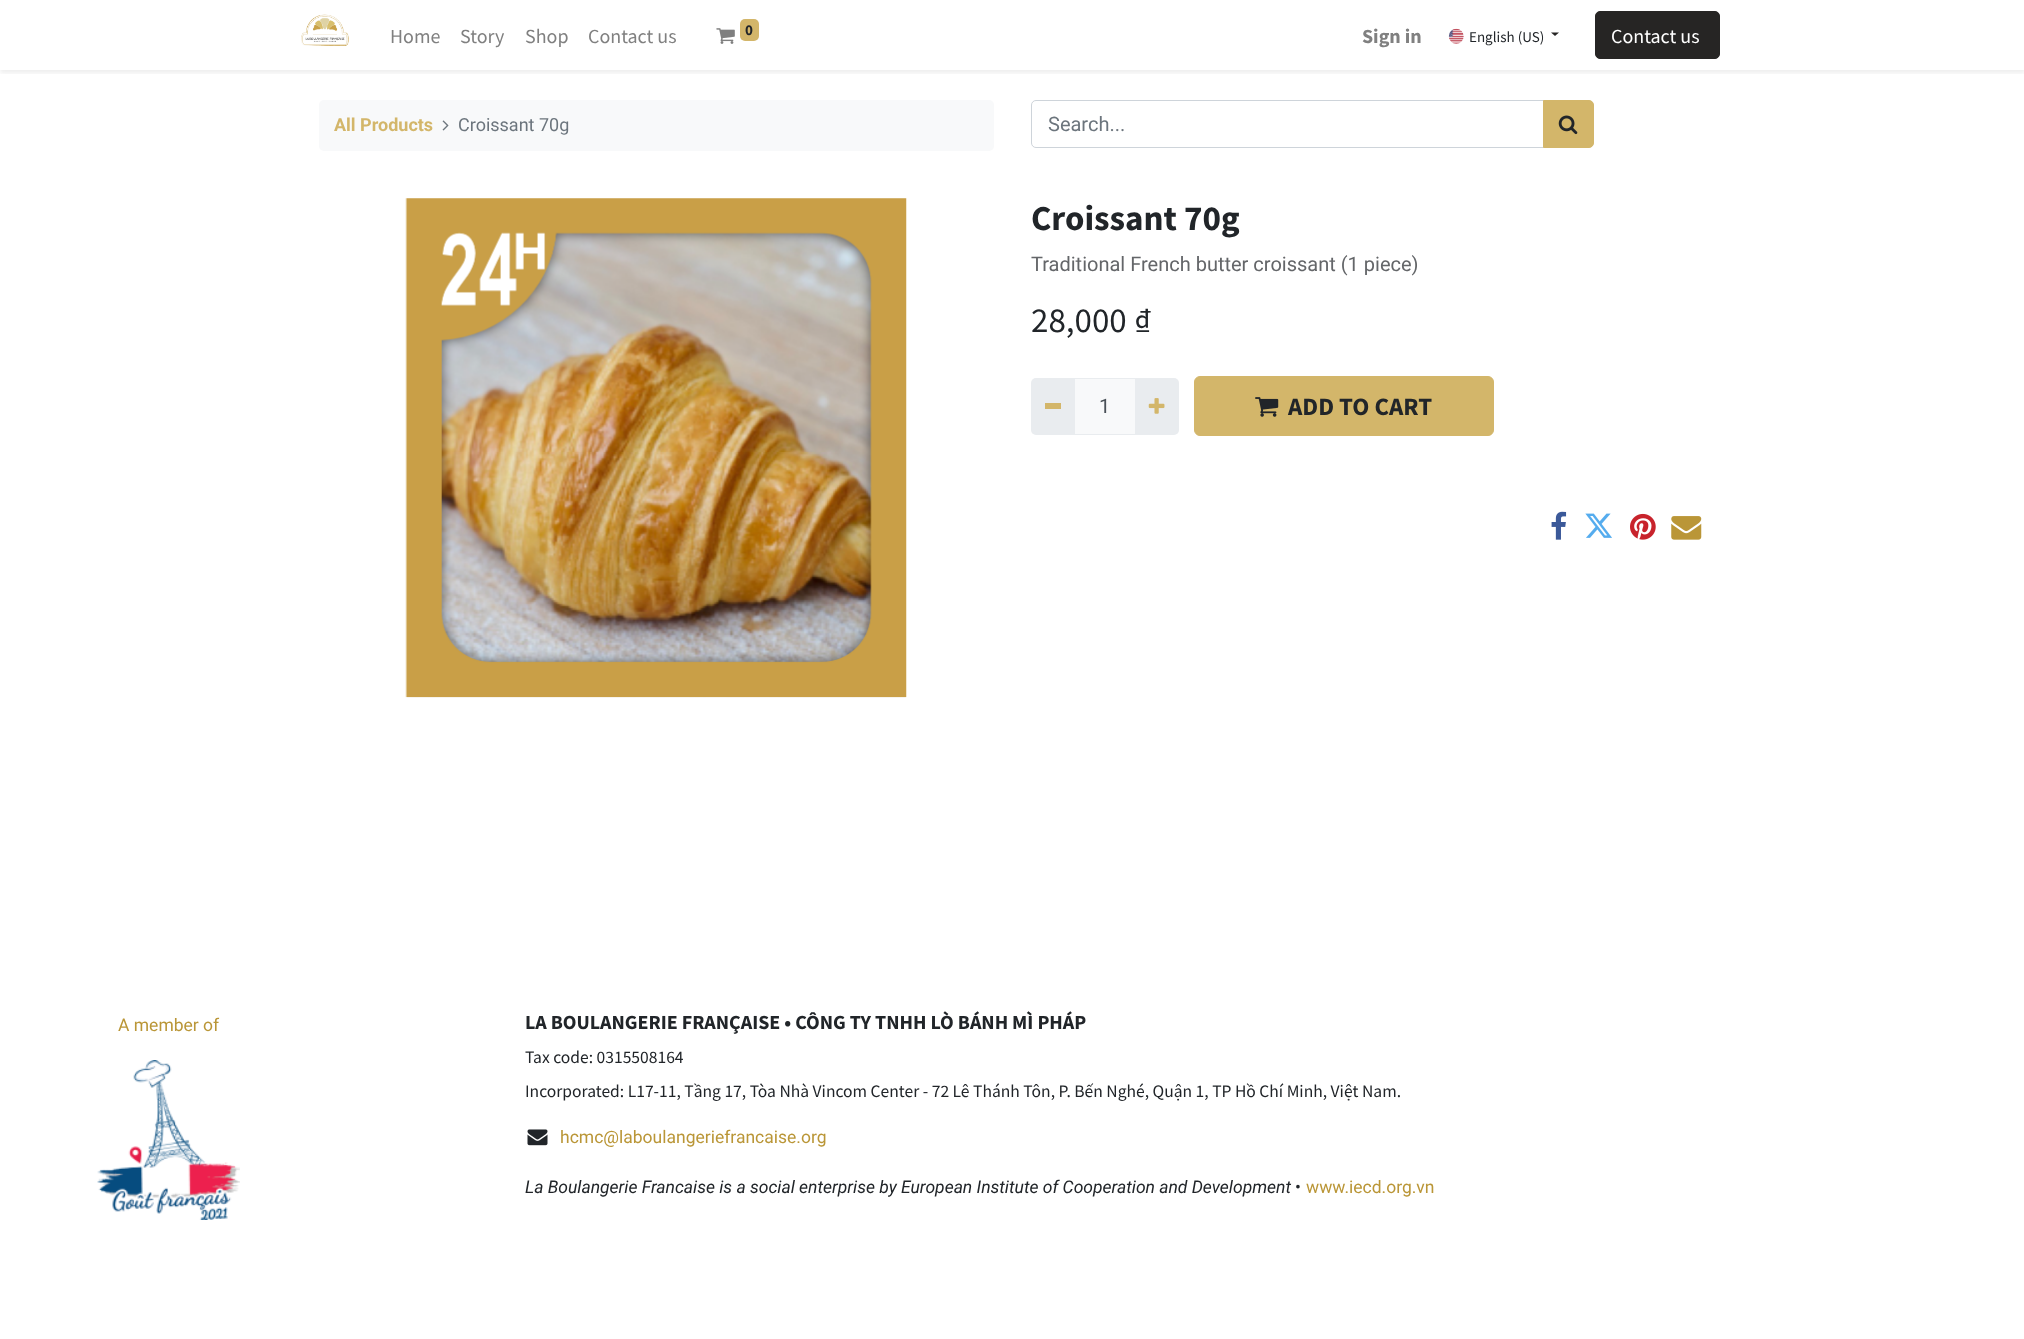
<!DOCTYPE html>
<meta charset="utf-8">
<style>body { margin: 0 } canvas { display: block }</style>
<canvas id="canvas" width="2024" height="1339"></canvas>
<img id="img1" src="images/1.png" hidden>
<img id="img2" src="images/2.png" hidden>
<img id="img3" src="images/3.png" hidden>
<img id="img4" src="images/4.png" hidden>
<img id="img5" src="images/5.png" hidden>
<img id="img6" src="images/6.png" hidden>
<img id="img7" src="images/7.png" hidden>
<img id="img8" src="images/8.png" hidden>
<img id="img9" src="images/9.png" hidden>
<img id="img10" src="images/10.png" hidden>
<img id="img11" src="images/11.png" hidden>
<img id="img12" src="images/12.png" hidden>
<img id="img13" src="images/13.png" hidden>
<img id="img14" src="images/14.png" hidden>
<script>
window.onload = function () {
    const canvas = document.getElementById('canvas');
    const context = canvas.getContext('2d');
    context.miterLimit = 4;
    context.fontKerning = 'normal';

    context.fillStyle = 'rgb(255, 255, 255)';
    context.fillRect(0, 0, 2024, 1339);
    context.save();
    context.beginPath();
    context.rect(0, 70, 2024, 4);
    context.clip();
    context.fillStyle = 'rgba(0, 0, 0, 0.07)';
    context.filter = 'blur(2.5px)';
    context.beginPath();
    context.rect(0, 3, 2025, 70);
    context.fill();
    context.filter = 'none';
    context.restore();
    context.drawImage(document.getElementById('img1'), 301, 14, 48, 32);
    context.drawImage(document.getElementById('img2'), 716, 28, 19, 16);
    context.fillStyle = 'rgb(211, 182, 106)';
    context.beginPath();
    context.roundRect(740, 19, 19, 22, 5);
    context.fill();
    context.drawImage(document.getElementById('img3'), 1448, 28, 16, 16);
    context.fillStyle = 'rgb(38, 37, 36)';
    context.beginPath();
    context.moveTo(1551, 32.5);
    context.lineTo(1559, 32.5);
    context.lineTo(1555, 36);
    context.closePath();
    context.fill();
    context.beginPath();
    context.roundRect(1595.5, 11.5, 124, 47, 4.5);
    context.fill();
    context.strokeStyle = 'rgb(38, 37, 36)';
    context.stroke();
    context.fillStyle = 'rgb(248, 249, 250)';
    context.beginPath();
    context.roundRect(319, 100, 675, 51, 5);
    context.fill();
    context.drawImage(document.getElementById('img4'), 442, 120, 7, 11);
    context.beginPath();
    context.roundRect(1031.5, 100.5, 512, 47, [4.5, 0, 0, 4.5]);
    context.strokeStyle = 'rgb(206, 212, 218)';
    context.stroke();
    context.fillStyle = 'rgb(211, 182, 106)';
    context.beginPath();
    context.roundRect(1543.5, 100.5, 50, 47, [0, 4.5, 4.5, 0]);
    context.fill();
    context.strokeStyle = 'rgb(211, 182, 106)';
    context.stroke();
    context.drawImage(document.getElementById('img5'), 1558, 115, 20, 20);
    context.drawImage(document.getElementById('img6'), 405, 198, 502, 500);
    context.fillStyle = 'rgb(248, 249, 250)';
    context.beginPath();
    context.rect(1074.5, 378.5, 61, 56);
    context.fill();
    context.strokeStyle = 'rgb(233, 236, 239)';
    context.stroke();
    context.fillStyle = 'rgb(233, 236, 239)';
    context.beginPath();
    context.roundRect(1031, 378, 44, 57, [5, 0, 0, 5]);
    context.fill();
    context.fillStyle = 'rgb(211, 182, 106)';
    context.fillRect(1045, 403, 16, 6);
    context.fillStyle = 'rgb(233, 236, 239)';
    context.beginPath();
    context.roundRect(1135, 378, 44, 57, [0, 5, 5, 0]);
    context.fill();
    context.drawImage(document.getElementById('img7'), 1148, 398, 17, 16);
    context.fillStyle = 'rgb(211, 182, 106)';
    context.beginPath();
    context.roundRect(1194.5, 376.5, 299, 59, 5.5);
    context.fill();
    context.strokeStyle = 'rgb(211, 182, 106)';
    context.stroke();
    context.drawImage(document.getElementById('img8'), 1255, 397, 24, 20);
    context.drawImage(document.getElementById('img9'), 1551, 511, 16, 29);
    context.drawImage(document.getElementById('img10'), 1585, 513, 27, 25);
    context.drawImage(document.getElementById('img11'), 1630, 513, 26, 27);
    context.drawImage(document.getElementById('img12'), 1671, 516, 31, 24);
    context.drawImage(document.getElementById('img13'), 97, 1060, 143, 160);
    context.drawImage(document.getElementById('img14'), 527, 1129, 21, 17);
    context.font = '20px Source Sans Pro';
    context.fillStyle = 'rgb(128, 128, 128)';
    context.fillText('Home', 390, 43);
    context.fillText('Story', 460, 43);
    context.fillText('Shop', 525, 43);
    context.fillText('Contact us', 588, 43);
    context.font = 'bold 15px Source Sans Pro';
    context.fillStyle = 'rgb(33, 37, 41)';
    context.fillText('0', 745, 35);
    context.font = 'bold 20px Source Sans Pro';
    context.fillStyle = 'rgb(128, 128, 128)';
    context.fillText('Sign in', 1362, 43);
    context.font = '15px Source Sans Pro';
    context.fillStyle = 'rgb(33, 37, 41)';
    context.fillText('English (US)', 1469, 42);
    context.font = '20px Source Sans Pro';
    context.fillStyle = 'rgb(255, 255, 255)';
    context.fillText('Contact us', 1611, 43);
    context.font = 'bold 18px Roboto';
    context.fillStyle = 'rgb(211, 182, 106)';
    context.fillText('All Products', 334, 131);
    context.font = '18px Roboto';
    context.fillStyle = 'rgb(108, 117, 125)';
    context.fillText('Croissant 70g', 458, 131);
    context.font = '20px Roboto';
    context.fillText('Search...', 1048, 131);
    context.font = 'bold 35px Source Sans Pro';
    context.fillStyle = 'rgb(33, 37, 41)';
    context.fillText('Croissant 70g', 1031, 230);
    context.font = '20px Roboto';
    context.fillStyle = 'rgb(100, 102, 105)';
    context.fillText('Traditional French butter croissant (1 piece)', 1031, 271);
    context.font = '35px Source Sans Pro';
    context.fillStyle = 'rgb(33, 37, 41)';
    context.fillText('28,000 ₫', 1031, 332);
    context.font = '20px Roboto';
    context.fillStyle = 'rgb(73, 80, 87)';
    context.fillText('1', 1099, 413);
    context.font = 'bold 25px Source Sans Pro';
    context.fillStyle = 'rgb(33, 37, 41)';
    context.fillText('ADD TO CART', 1288, 415);
    context.font = '17.5px Roboto';
    context.fillStyle = 'rgb(186, 150, 55)';
    context.fillText('A member of', 118, 1031);
    context.font = 'bold 20px Source Sans Pro';
    context.fillStyle = 'rgb(33, 37, 41)';
    context.fillText('LA BOULANGERIE FRANÇAISE • CÔNG TY TNHH LÒ BÁNH MÌ PHÁP', 525, 1029);
    context.font = '17.5px Source Sans Pro';
    context.fillText('Tax code: 0315508164', 525, 1063);
    context.fillText('Incorporated: L17-11, Tầng 17, Tòa Nhà Vincom Center - 72 Lê Thánh Tôn, P. Bến Nghé, Quận 1, TP Hồ Chí Minh, Việt Nam.', 525, 1097);
    context.font = '17.5px Roboto';
    context.fillStyle = 'rgb(186, 150, 55)';
    context.fillText('hcmc@laboulangeriefrancaise.org', 560, 1143);
    context.font = 'italic 17.5px Roboto';
    context.fillStyle = 'rgb(33, 37, 41)';
    context.fillText('La Boulangerie Francaise is a social enterprise by European Institute of Cooperation and Development', 525, 1193);
    context.font = '17.5px Roboto';
    context.fillText('•', 1295, 1193);
    context.fillStyle = 'rgb(186, 150, 55)';
    context.fillText('www.iecd.org.vn', 1306, 1193);
};
</script>
